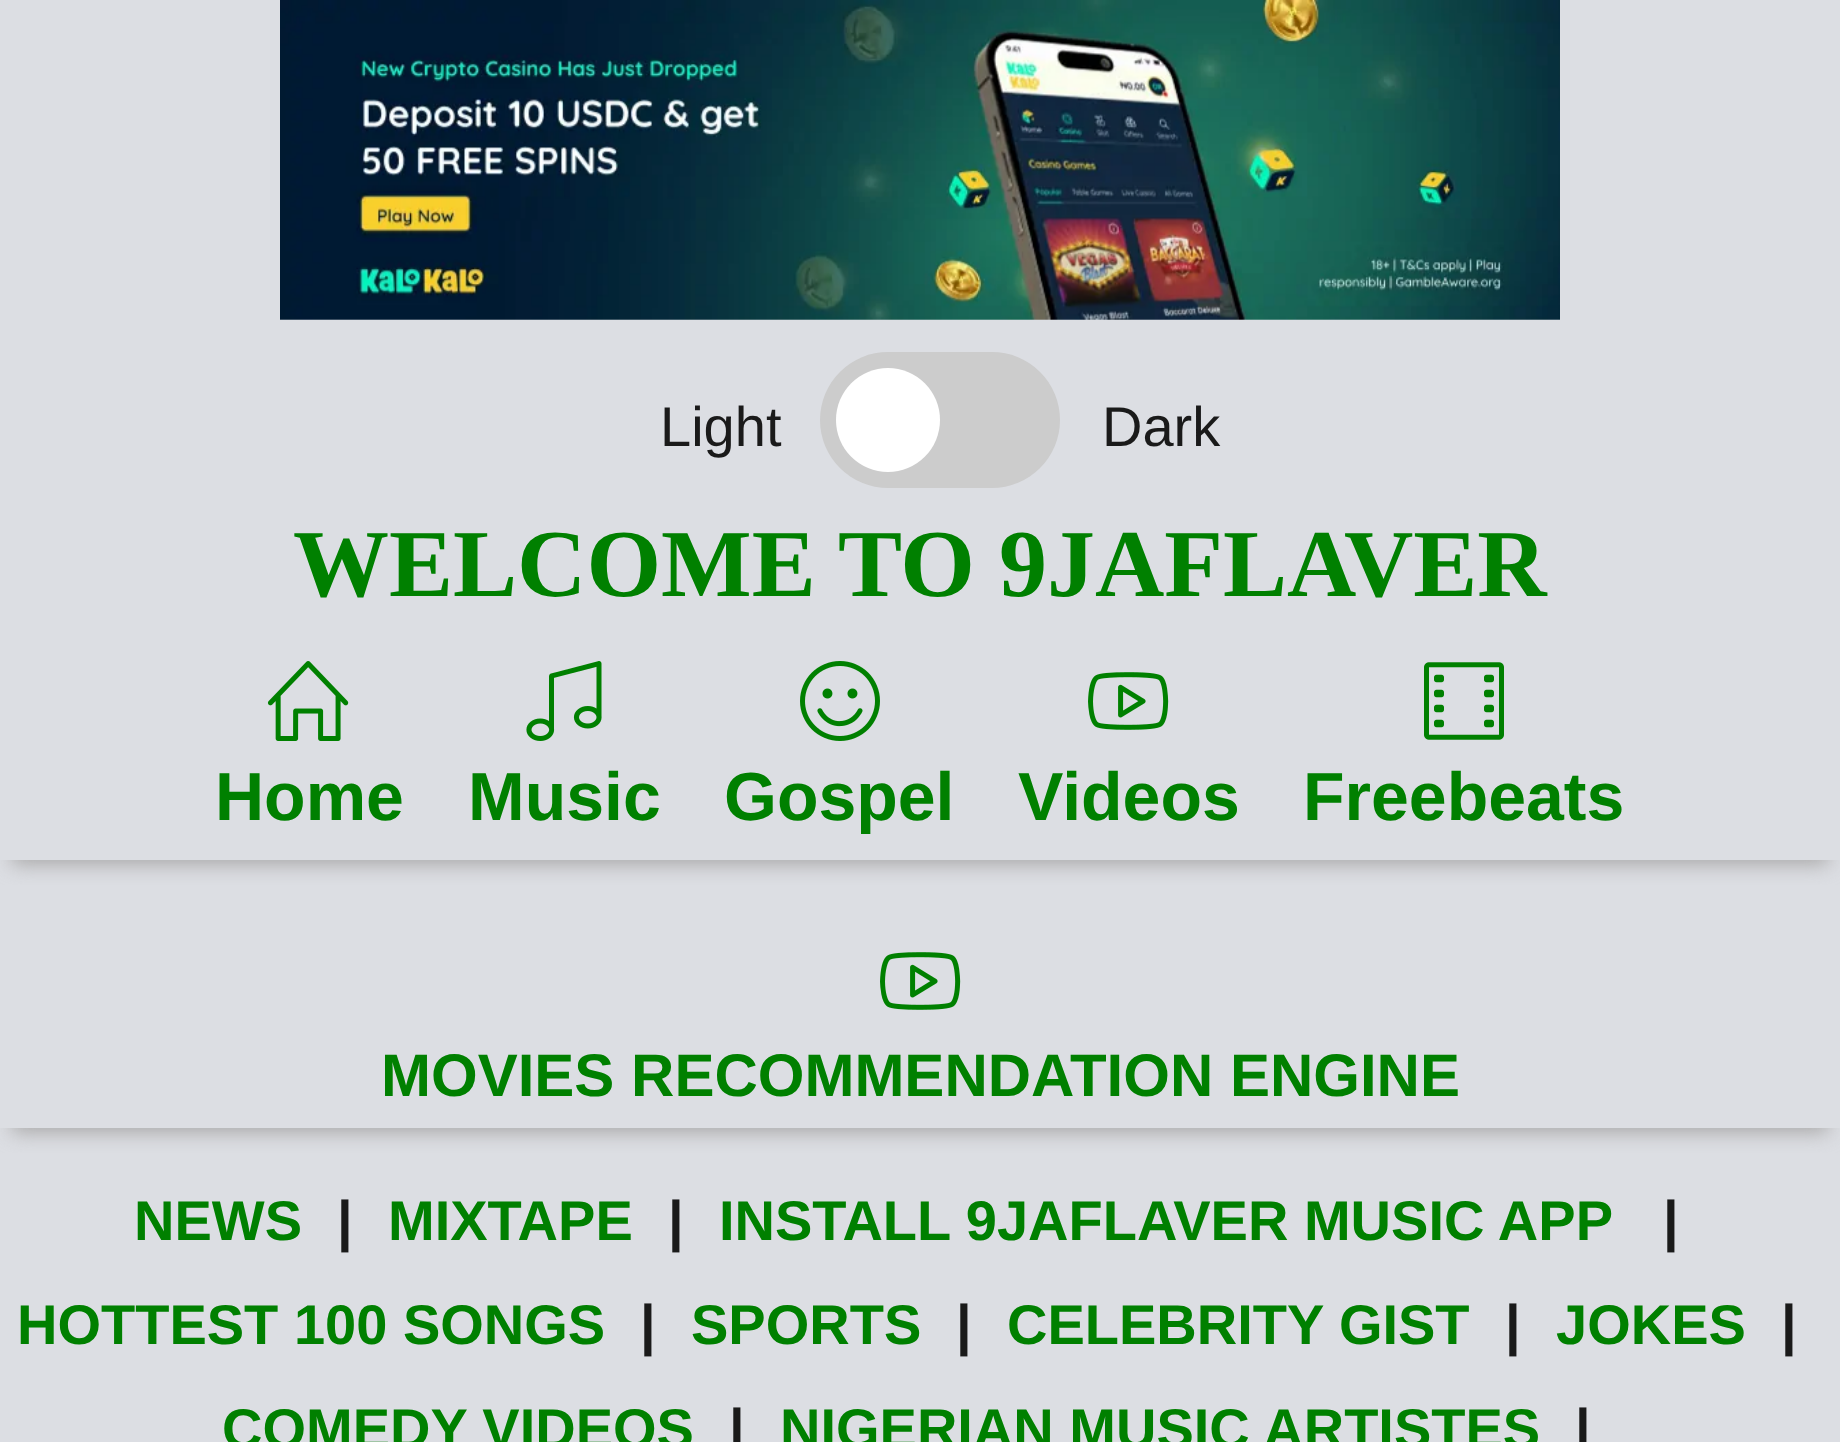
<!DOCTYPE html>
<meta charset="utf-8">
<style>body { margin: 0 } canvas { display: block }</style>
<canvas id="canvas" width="1840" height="1442"></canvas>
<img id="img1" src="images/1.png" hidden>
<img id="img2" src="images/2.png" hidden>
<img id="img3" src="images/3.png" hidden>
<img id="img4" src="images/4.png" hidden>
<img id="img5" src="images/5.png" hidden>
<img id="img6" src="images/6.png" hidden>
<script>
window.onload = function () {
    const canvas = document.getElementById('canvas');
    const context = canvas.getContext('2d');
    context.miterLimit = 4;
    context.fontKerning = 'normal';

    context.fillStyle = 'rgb(220, 222, 227)';
    context.fillRect(0, 0, 1840, 1442);
    context.drawImage(document.getElementById('img1'), 280, 0, 1280, 320);
    context.fillStyle = 'rgb(204, 204, 204)';
    context.beginPath();
    context.roundRect(820, 352, 240, 136, 68);
    context.fill();
    context.fillStyle = 'rgb(255, 255, 255)';
    context.beginPath();
    context.arc(888, 420, 52, 0, 2 * Math.PI);
    context.fill();
    context.save();
    context.beginPath();
    context.rect(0, 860, 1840, 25);
    context.clip();
    context.fillStyle = 'rgb(167, 166, 166)';
    context.filter = 'blur(10px)';
    context.beginPath();
    context.rect(12, 648, 1816, 216);
    context.fill();
    context.filter = 'none';
    context.restore();
    context.drawImage(document.getElementById('img2'), 267, 661, 82, 80);
    context.drawImage(document.getElementById('img3'), 526, 661, 76, 80);
    context.drawImage(document.getElementById('img4'), 800, 661, 80, 80);
    context.drawImage(document.getElementById('img5'), 1088, 672, 81, 58);
    context.drawImage(document.getElementById('img6'), 1424, 662, 80, 78);
    context.save();
    context.beginPath();
    context.rect(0, 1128, 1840, 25);
    context.clip();
    context.fillStyle = 'rgb(167, 166, 166)';
    context.filter = 'blur(10px)';
    context.beginPath();
    context.rect(12, 928, 1816, 204);
    context.fill();
    context.filter = 'none';
    context.restore();
    context.drawImage(document.getElementById('img5'), 880, 952, 81, 58);
    context.font = '56px Liberation Sans';
    context.fillStyle = 'rgb(26, 26, 26)';
    context.fillText('Light', 660, 446);
    context.fillText('Dark', 1102, 446);
    context.font = 'bold 96px Liberation Serif';
    context.fillStyle = 'rgb(0, 128, 0)';
    context.fillText('WELCOME TO 9JAFLAVER', 293, 596);
    context.font = 'bold 68px Liberation Sans';
    context.fillText('Home', 215, 820);
    context.fillText('Music', 468, 820);
    context.fillText('Gospel', 724, 820);
    context.fillText('Videos', 1018, 820);
    context.fillText('Freebeats', 1303, 820);
    context.font = 'bold 60px Liberation Sans';
    context.fillText('MOVIES RECOMMENDATION ENGINE', 381, 1096);
    context.font = 'bold 56px Liberation Sans';
    context.fillText('NEWS', 134, 1240);
    context.fillStyle = 'rgb(26, 26, 26)';
    context.fillText('|', 337, 1240);
    context.fillStyle = 'rgb(0, 128, 0)';
    context.fillText('MIXTAPE', 388, 1240);
    context.fillStyle = 'rgb(26, 26, 26)';
    context.fillText('|', 668, 1240);
    context.fillStyle = 'rgb(0, 128, 0)';
    context.fillText('INSTALL 9JAFLAVER MUSIC APP', 719, 1240);
    context.fillStyle = 'rgb(26, 26, 26)';
    context.fillText('|', 1663, 1240);
    context.fillStyle = 'rgb(0, 128, 0)';
    context.fillText('HOTTEST 100 SONGS', 17, 1344);
    context.fillStyle = 'rgb(26, 26, 26)';
    context.fillText('|', 640, 1344);
    context.fillStyle = 'rgb(0, 128, 0)';
    context.fillText('SPORTS', 691, 1344);
    context.fillStyle = 'rgb(26, 26, 26)';
    context.fillText('|', 956, 1344);
    context.fillStyle = 'rgb(0, 128, 0)';
    context.fillText('CELEBRITY GIST', 1007, 1344);
    context.fillStyle = 'rgb(26, 26, 26)';
    context.fillText('|', 1505, 1344);
    context.fillStyle = 'rgb(0, 128, 0)';
    context.fillText('JOKES', 1556, 1344);
    context.fillStyle = 'rgb(26, 26, 26)';
    context.fillText('|', 1781, 1344);
    context.fillStyle = 'rgb(0, 128, 0)';
    context.fillText('COMEDY VIDEOS', 222, 1448);
    context.fillStyle = 'rgb(26, 26, 26)';
    context.fillText('|', 729, 1448);
    context.fillStyle = 'rgb(0, 128, 0)';
    context.fillText('NIGERIAN MUSIC ARTISTES', 780, 1448);
    context.fillStyle = 'rgb(26, 26, 26)';
    context.fillText('|', 1575, 1448);
};
</script>
